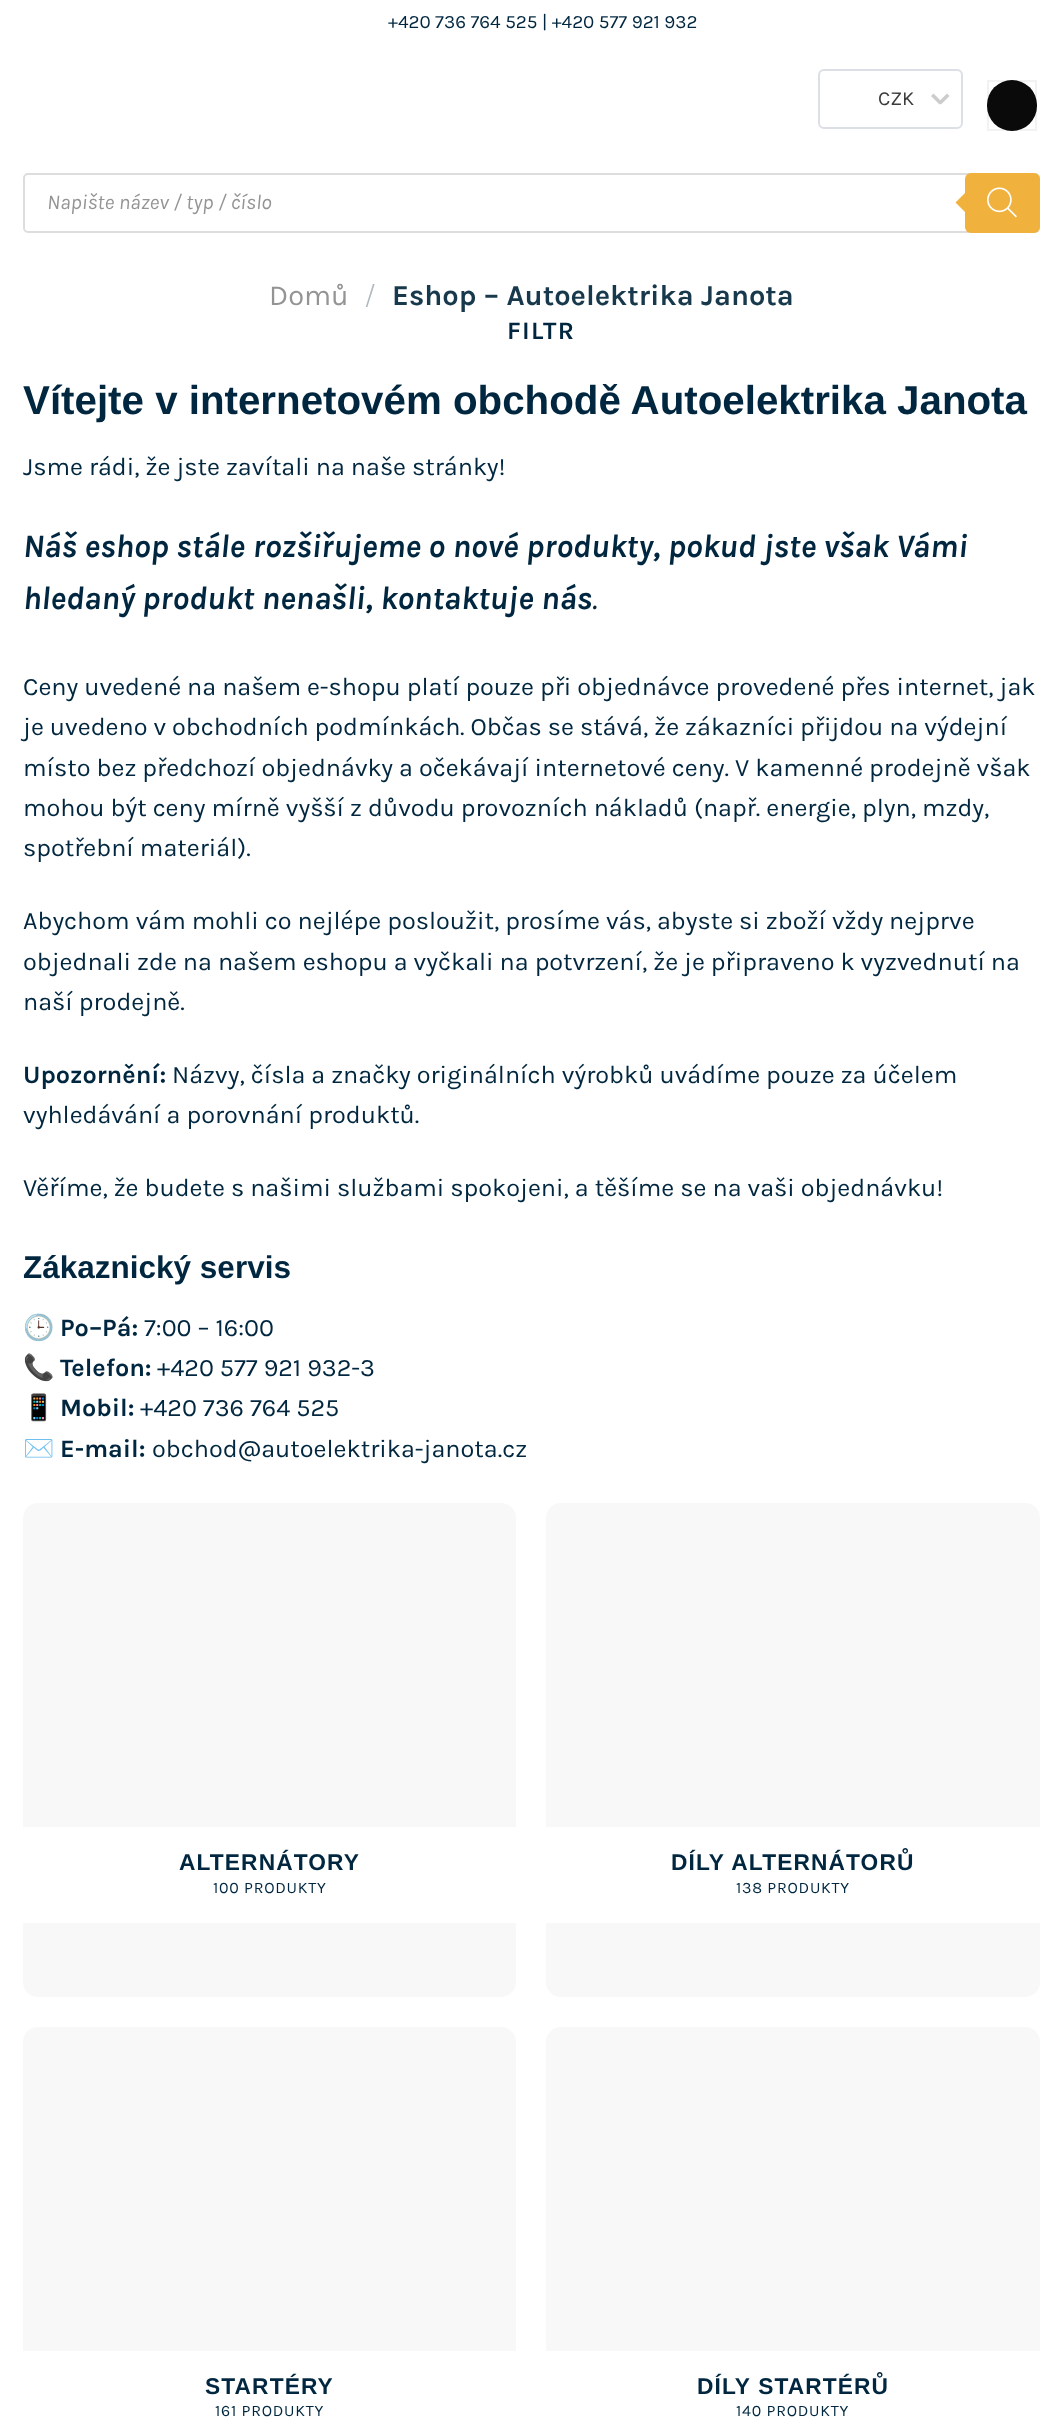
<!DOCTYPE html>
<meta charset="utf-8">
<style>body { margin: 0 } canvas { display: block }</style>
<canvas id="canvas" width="1061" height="2434"></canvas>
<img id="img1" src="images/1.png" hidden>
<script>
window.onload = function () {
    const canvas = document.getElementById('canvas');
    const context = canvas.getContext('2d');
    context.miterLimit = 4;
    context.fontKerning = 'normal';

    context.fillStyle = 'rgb(255, 255, 255)';
    context.fillRect(0, 0, 1061, 2434);
    context.beginPath();
    context.roundRect(819, 70, 143, 58, 5);
    context.strokeStyle = 'rgb(220, 223, 230)';
    context.lineWidth = 2;
    context.stroke();
    context.fillStyle = 'rgb(204, 204, 204)';
    context.beginPath();
    context.moveTo(931, 96);
    context.lineTo(933.5, 93.5);
    context.lineTo(942, 102);
    context.lineTo(939.5, 104.5);
    context.closePath();
    context.fill();
    context.beginPath();
    context.moveTo(947, 93.5);
    context.lineTo(949.5, 96);
    context.lineTo(941, 104.5);
    context.lineTo(938.5, 102);
    context.closePath();
    context.fill();
    context.fillStyle = 'rgb(10, 10, 10)';
    context.beginPath();
    context.roundRect(987, 80, 50, 51, 25);
    context.fill();
    context.strokeStyle = 'rgba(0, 0, 0, 0.05)';
    context.strokeRect(988, 81, 48, 49);
    context.beginPath();
    context.roundRect(24, 174, 1015, 58, 4);
    context.strokeStyle = 'rgb(221, 221, 221)';
    context.stroke();
    context.fillStyle = 'rgb(240, 177, 61)';
    context.beginPath();
    context.roundRect(965, 173, 75, 60, 6);
    context.fill();
    context.beginPath();
    context.moveTo(967.5, 190.5);
    context.lineTo(967.5, 214.5);
    context.lineTo(955.5, 202.5);
    context.closePath();
    context.fill();
    context.drawImage(document.getElementById('img1'), 987, 187, 30, 31);
    context.fillStyle = 'rgb(248, 248, 248)';
    context.beginPath();
    context.roundRect(23, 1503, 493, 494, 15);
    context.fill();
    context.fillStyle = 'rgb(255, 255, 255)';
    context.fillRect(23, 1827, 493, 96);
    context.fillStyle = 'rgb(248, 248, 248)';
    context.beginPath();
    context.roundRect(546, 1503, 494, 494, 15);
    context.fill();
    context.fillStyle = 'rgb(255, 255, 255)';
    context.fillRect(546, 1827, 494, 96);
    context.fillStyle = 'rgb(248, 248, 248)';
    context.beginPath();
    context.roundRect(23, 2027, 493, 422, 15);
    context.fill();
    context.fillStyle = 'rgb(255, 255, 255)';
    context.fillRect(23, 2351, 493, 83);
    context.fillStyle = 'rgb(248, 248, 248)';
    context.beginPath();
    context.roundRect(546, 2027, 494, 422, 15);
    context.fill();
    context.fillStyle = 'rgb(255, 255, 255)';
    context.fillRect(546, 2351, 494, 83);
    context.font = '18.9px Karla';
    context.fillStyle = 'rgb(0, 39, 63)';
    context.fillText('+420 736 764 525 | +420 577 921 932', 388, 28);
    context.font = '20px Karla';
    context.fillStyle = 'rgb(59, 59, 59)';
    context.fillText('CZK', 878, 105);
    context.font = 'italic 21px Karla';
    context.fillStyle = 'rgb(148, 148, 148)';
    context.fillText('Napište název / typ / číslo', 47, 209);
    context.font = '29px Karla';
    context.fillText('Domů', 269, 305);
    context.font = '300 29px Karla';
    context.fillStyle = 'rgb(174, 186, 192)';
    context.fillText('/', 364, 305);
    context.font = 'bold 29px Karla';
    context.fillStyle = 'rgb(24, 57, 76)';
    context.fillText('Eshop – Autoelektrika Janota', 392, 305);
    context.letterSpacing = '1.25px';
    context.font = 'bold 25.2px Karla';
    context.fillStyle = 'rgb(0, 39, 63)';
    context.fillText('FILTR', 507, 339);
    context.letterSpacing = '0px';
    context.font = 'bold 40.3px Liberation Sans';
    context.fillText('Vítejte v internetovém obchodě Autoelektrika Janota', 23, 414);
    context.font = '25.2px Karla';
    context.fillText('Jsme rádi, že jste zavítali na naše stránky!', 23, 475);
    context.font = 'italic bold 32.75px Karla';
    context.fillText('Náš eshop stále rozšiřujeme o nové produkty, pokud jste však Vámi', 23, 557);
    context.fillText('hledaný produkt nenašli, kontaktuje nás', 23, 609);
    context.font = 'italic 32.75px Karla';
    context.fillText('.', 592, 609);
    context.font = '25.2px Karla';
    context.fillText('Ceny uvedené na našem e-shopu platí pouze při objednávce provedené přes internet, jak', 23, 695);
    context.fillText('je uvedeno v obchodních podmínkách', 23, 735);
    context.fillText('. Občas se stává, že zákazníci přijdou na výdejní', 460, 735);
    context.fillText('místo bez předchozí objednávky a očekávají internetové ceny. V kamenné prodejně však', 23, 776);
    context.fillText('mohou být ceny mírně vyšší z důvodu provozních nákladů (např. energie, plyn, mzdy,', 23, 816);
    context.fillText('spotřební materiál).', 23, 856);
    context.fillText('Abychom vám mohli co nejlépe posloužit, prosíme vás, abyste si zboží vždy nejprve', 23, 929);
    context.fillText('objednali zde na našem eshopu a vyčkali na potvrzení, že je připraveno k vyzvednutí na', 23, 970);
    context.fillText('naší prodejně.', 23, 1010);
    context.font = 'bold 25.2px Karla';
    context.fillText('Upozornění:', 23, 1083);
    context.font = '25.2px Karla';
    context.fillText('Názvy, čísla a značky originálních výrobků uvádíme pouze za účelem', 172, 1083);
    context.fillText('vyhledávání a porovnání produktů.', 23, 1123);
    context.fillText('Věříme, že budete s našimi službami spokojeni, a těšíme se na vaši objednávku!', 23, 1196);
    context.font = 'bold 31.5px Liberation Sans';
    context.fillText('Zákaznický servis', 23, 1278);
    context.font = '25.2px Noto Color Emoji';
    context.fillText('🕒', 23, 1336);
    context.font = 'bold 25.2px Karla';
    context.fillText('Po–Pá:', 60, 1336);
    context.font = '25.2px Karla';
    context.fillText('7:00 – 16:00', 144, 1336);
    context.font = '25.2px Noto Color Emoji';
    context.fillText('📞', 23, 1376);
    context.font = 'bold 25.2px Karla';
    context.fillText('Telefon:', 60, 1376);
    context.font = '25.2px Karla';
    context.fillText('+420 577 921 932-3', 157, 1376);
    context.font = '25.2px Noto Color Emoji';
    context.fillText('📱', 23, 1416);
    context.font = 'bold 25.2px Karla';
    context.fillText('Mobil:', 60, 1416);
    context.font = '25.2px Karla';
    context.fillText('+420 736 764 525', 140, 1416);
    context.font = 'bold 25.2px Noto Color Emoji';
    context.fillText('✉️', 23, 1457);
    context.font = 'bold 25.2px Karla';
    context.fillText('E-mail:', 60, 1457);
    context.font = '25.2px Karla';
    context.fillText('obchod@autoelektrika-janota.cz', 152, 1457);
    context.letterSpacing = '1.1px';
    context.font = 'bold 22.75px Liberation Sans';
    context.fillText('ALTERNÁTORY', 179, 1870);
    context.letterSpacing = '0.75px';
    context.font = '16px Karla';
    context.fillText('100 PRODUKTY', 213, 1893);
    context.letterSpacing = '1.1px';
    context.font = 'bold 22.75px Liberation Sans';
    context.fillText('DÍLY ALTERNÁTORŮ', 671, 1870);
    context.letterSpacing = '0.75px';
    context.font = '16px Karla';
    context.fillText('138 PRODUKTY', 736, 1893);
    context.letterSpacing = '1.1px';
    context.font = 'bold 22.75px Liberation Sans';
    context.fillText('STARTÉRY', 205, 2394);
    context.letterSpacing = '0.75px';
    context.font = '16px Karla';
    context.fillText('161 PRODUKTY', 215, 2416);
    context.letterSpacing = '1.1px';
    context.font = 'bold 22.75px Liberation Sans';
    context.fillText('DÍLY STARTÉRŮ', 697, 2394);
    context.letterSpacing = '0.75px';
    context.font = '16px Karla';
    context.fillText('140 PRODUKTY', 736, 2416);
};
</script>
